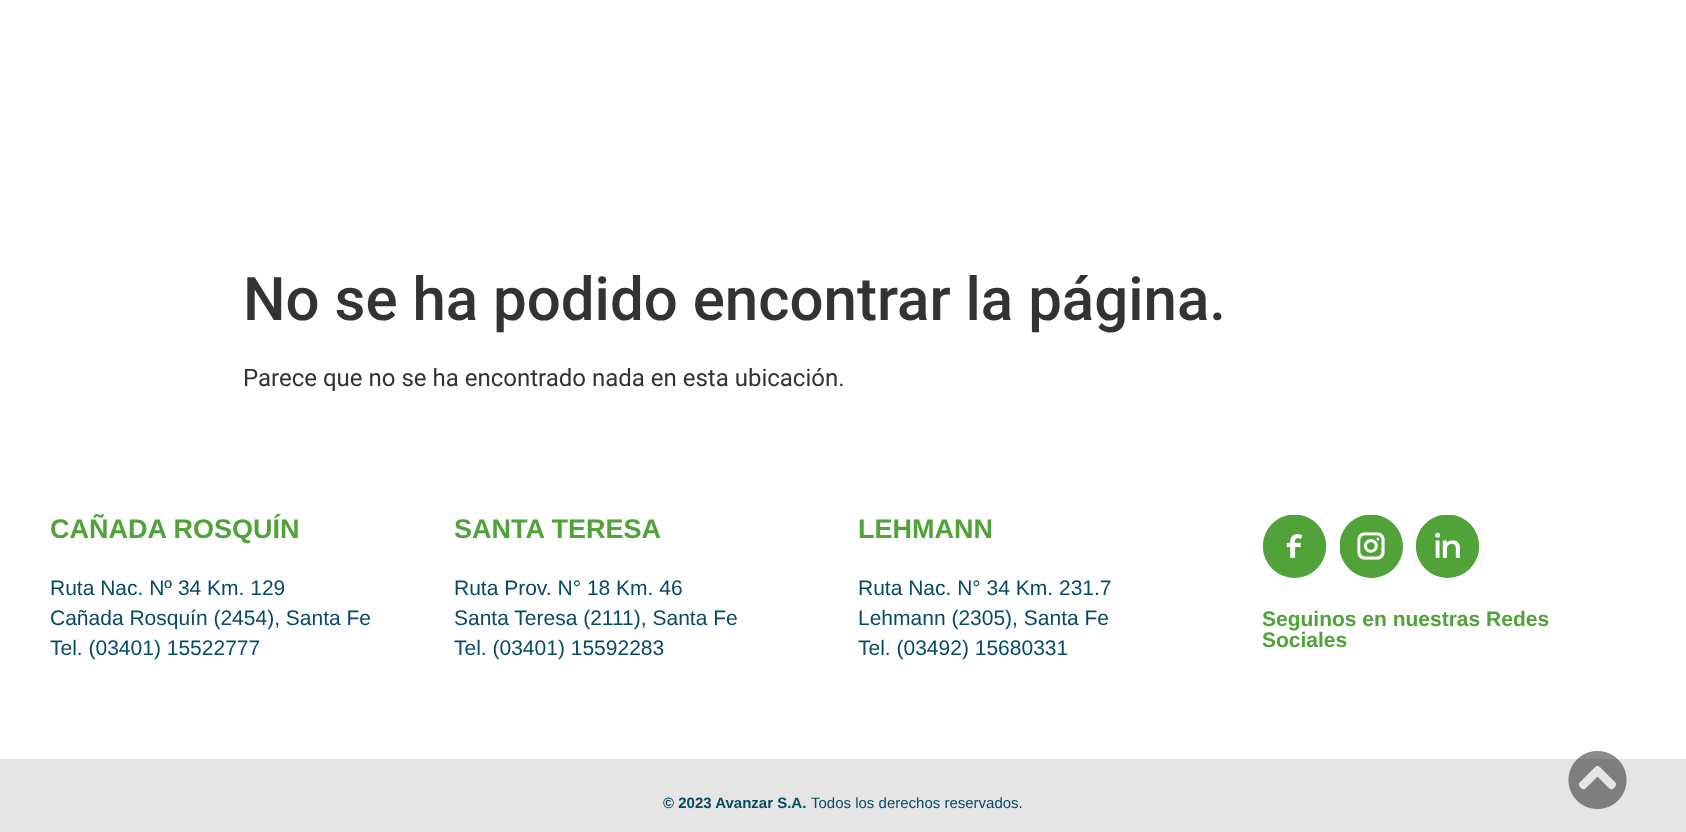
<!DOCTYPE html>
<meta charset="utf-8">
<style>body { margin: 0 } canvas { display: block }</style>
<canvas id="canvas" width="1686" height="832"></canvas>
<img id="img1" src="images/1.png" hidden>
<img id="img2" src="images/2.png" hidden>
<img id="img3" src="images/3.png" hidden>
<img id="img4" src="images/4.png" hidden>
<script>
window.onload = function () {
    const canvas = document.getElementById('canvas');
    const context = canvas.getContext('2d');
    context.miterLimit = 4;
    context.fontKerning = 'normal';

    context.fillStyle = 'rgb(255, 255, 255)';
    context.fillRect(0, 0, 1686, 832);
    context.fillStyle = 'rgb(80, 162, 57)';
    context.beginPath();
    context.arc(1294.5, 546.5, 31.5, 0, 2 * Math.PI);
    context.fill();
    context.drawImage(document.getElementById('img1'), 1263, 515, 63, 63);
    context.beginPath();
    context.arc(1371.5, 546.5, 31.5, 0, 2 * Math.PI);
    context.fill();
    context.drawImage(document.getElementById('img2'), 1340, 515, 63, 63);
    context.beginPath();
    context.arc(1447.5, 546.5, 31.5, 0, 2 * Math.PI);
    context.fill();
    context.drawImage(document.getElementById('img3'), 1416, 515, 63, 63);
    context.fillStyle = 'rgb(229, 229, 229)';
    context.fillRect(0, 759, 1686, 73);
    context.drawImage(document.getElementById('img4'), 1568, 750, 59, 60);
    context.font = '500 60px Roboto';
    context.fillStyle = 'rgb(51, 51, 51)';
    context.fillText('No se ha podido encontrar la página.', 243, 320);
    context.font = '24px Roboto';
    context.fillText('Parece que no se ha encontrado nada en esta ubicación.', 243, 386);
    context.font = 'bold 27px Liberation Sans';
    context.fillStyle = 'rgb(80, 162, 57)';
    context.fillText('CAÑADA ROSQUÍN', 50, 538);
    context.font = '21px Liberation Sans';
    context.fillStyle = 'rgb(6, 74, 100)';
    context.fillText('Ruta Nac. Nº 34 Km. 129', 50, 595);
    context.fillText('Cañada Rosquín (2454), Santa Fe', 50, 625);
    context.fillText('Tel. (03401) 15522777', 50, 655);
    context.font = 'bold 27px Liberation Sans';
    context.fillStyle = 'rgb(80, 162, 57)';
    context.fillText('SANTA TERESA', 454, 538);
    context.font = '21px Liberation Sans';
    context.fillStyle = 'rgb(6, 74, 100)';
    context.fillText('Ruta Prov. N° 18 Km. 46', 454, 595);
    context.fillText('Santa Teresa (2111), Santa Fe', 454, 625);
    context.fillText('Tel. (03401) 15592283', 454, 655);
    context.font = 'bold 27px Liberation Sans';
    context.fillStyle = 'rgb(80, 162, 57)';
    context.fillText('LEHMANN', 858, 538);
    context.font = '21px Liberation Sans';
    context.fillStyle = 'rgb(6, 74, 100)';
    context.fillText('Ruta Nac. N° 34 Km. 231.7', 858, 595);
    context.fillText('Lehmann (2305), Santa Fe', 858, 625);
    context.fillText('Tel. (03492) 15680331', 858, 655);
    context.font = 'bold 21px Liberation Sans';
    context.fillStyle = 'rgb(80, 162, 57)';
    context.fillText('Seguinos en nuestras Redes', 1262, 626);
    context.fillText('Sociales', 1262, 647);
    context.font = 'bold 15px Liberation Sans';
    context.fillStyle = 'rgb(6, 74, 100)';
    context.fillText('© 2023 Avanzar S.A.', 663, 808);
    context.font = '15px Liberation Sans';
    context.fillText('Todos los derechos reservados.', 811, 808);
};
</script>
